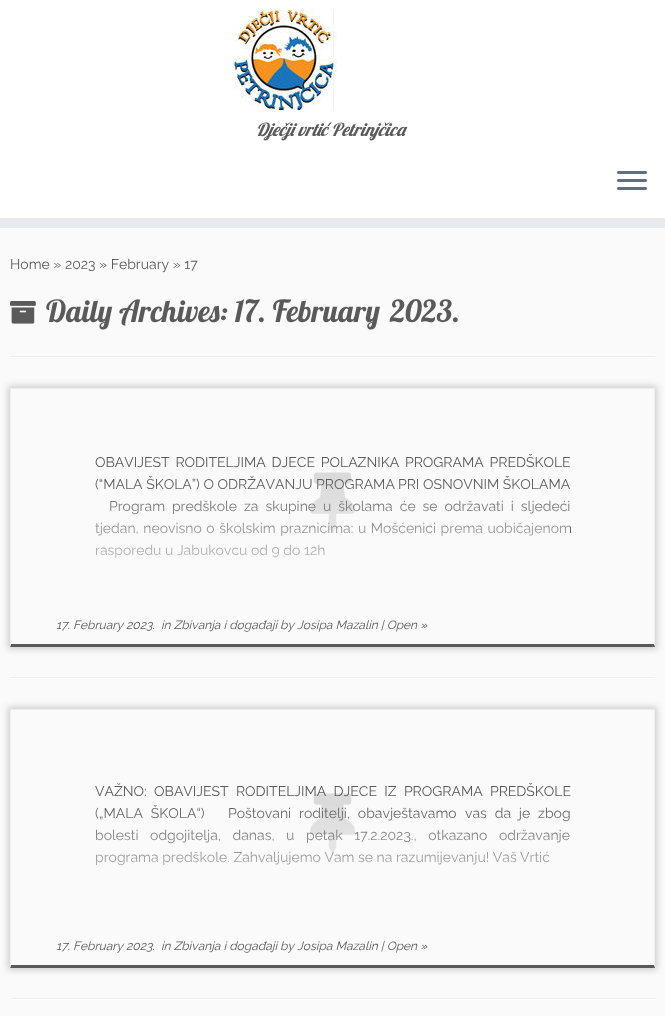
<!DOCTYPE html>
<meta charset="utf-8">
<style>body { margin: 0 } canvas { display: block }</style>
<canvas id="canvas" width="665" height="1016"></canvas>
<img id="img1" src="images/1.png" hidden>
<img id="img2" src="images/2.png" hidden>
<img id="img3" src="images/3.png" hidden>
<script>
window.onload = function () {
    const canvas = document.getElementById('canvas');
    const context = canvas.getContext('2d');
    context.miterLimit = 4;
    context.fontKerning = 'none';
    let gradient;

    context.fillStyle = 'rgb(250, 250, 250)';
    context.fillRect(0, 0, 665, 1016);
    context.fillStyle = 'rgb(255, 255, 255)';
    context.fillRect(0, 0, 665, 218);
    context.fillStyle = 'rgb(233, 234, 238)';
    context.fillRect(0, 218, 665, 10);
    context.drawImage(document.getElementById('img1'), 233, 10, 104, 100);
    context.fillStyle = 'rgb(95, 111, 129)';
    context.beginPath();
    context.roundRect(617, 171, 30, 3, 1.5);
    context.fill();
    context.beginPath();
    context.roundRect(617, 179, 30, 3, 1.5);
    context.fill();
    context.beginPath();
    context.roundRect(617, 187, 30, 3, 1.5);
    context.fill();
    context.drawImage(document.getElementById('img2'), 10, 301, 26, 23);
    context.fillStyle = 'rgb(238, 238, 238)';
    context.fillRect(10, 356, 645, 1);
    context.fillStyle = 'rgb(255, 255, 255)';
    context.fillRect(10, 357, 645, 1);
    context.save();
    context.beginPath();
    context.moveTo(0, 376);
    context.lineTo(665, 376);
    context.lineTo(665, 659);
    context.lineTo(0, 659);
    context.closePath();
    context.moveTo(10, 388);
    context.lineTo(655, 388);
    context.lineTo(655, 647);
    context.lineTo(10, 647);
    context.closePath();
    context.clip('evenodd');
    context.fillStyle = 'rgb(204, 204, 204)';
    context.filter = 'blur(3px)';
    context.beginPath();
    context.rect(8, 386, 649, 263);
    context.fill();
    context.filter = 'none';
    context.restore();
    context.fillStyle = 'rgb(238, 238, 238)';
    context.fillRect(10, 388, 645, 1);
    context.beginPath();
    context.moveTo(655, 388);
    context.lineTo(655, 647);
    context.lineTo(654, 644);
    context.lineTo(654, 389);
    context.closePath();
    context.fill();
    context.fillStyle = 'rgb(90, 90, 90)';
    context.beginPath();
    context.moveTo(655, 647);
    context.lineTo(10, 647);
    context.lineTo(11, 644);
    context.lineTo(654, 644);
    context.closePath();
    context.fill();
    context.fillStyle = 'rgb(238, 238, 238)';
    context.beginPath();
    context.moveTo(10, 647);
    context.lineTo(10, 388);
    context.lineTo(11, 389);
    context.lineTo(11, 644);
    context.closePath();
    context.fill();
    context.drawImage(document.getElementById('img3'), 310, 472, 45, 61);
    context.fillRect(10, 677, 645, 1);
    context.fillStyle = 'rgb(255, 255, 255)';
    context.fillRect(10, 678, 645, 1);
    context.save();
    context.beginPath();
    context.moveTo(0, 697);
    context.lineTo(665, 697);
    context.lineTo(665, 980);
    context.lineTo(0, 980);
    context.closePath();
    context.moveTo(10, 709);
    context.lineTo(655, 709);
    context.lineTo(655, 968);
    context.lineTo(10, 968);
    context.closePath();
    context.clip('evenodd');
    context.fillStyle = 'rgb(204, 204, 204)';
    context.filter = 'blur(3px)';
    context.beginPath();
    context.rect(8, 707, 649, 263);
    context.fill();
    context.filter = 'none';
    context.restore();
    context.fillStyle = 'rgb(238, 238, 238)';
    context.fillRect(10, 709, 645, 1);
    context.beginPath();
    context.moveTo(655, 709);
    context.lineTo(655, 968);
    context.lineTo(654, 965);
    context.lineTo(654, 710);
    context.closePath();
    context.fill();
    context.fillStyle = 'rgb(90, 90, 90)';
    context.beginPath();
    context.moveTo(655, 968);
    context.lineTo(10, 968);
    context.lineTo(11, 965);
    context.lineTo(654, 965);
    context.closePath();
    context.fill();
    context.fillStyle = 'rgb(238, 238, 238)';
    context.beginPath();
    context.moveTo(10, 968);
    context.lineTo(10, 709);
    context.lineTo(11, 710);
    context.lineTo(11, 965);
    context.closePath();
    context.fill();
    context.drawImage(document.getElementById('img3'), 310, 793, 45, 61);
    context.fillRect(10, 998, 645, 1);
    context.fillStyle = 'rgb(255, 255, 255)';
    context.fillRect(10, 999, 645, 1);
    context.font = 'italic 18px Lobster';
    context.fillStyle = 'rgb(90, 90, 90)';
    context.fillText('Dječji vrtić Petrinjčica', 256, 136);
    context.font = '100 14px Raleway';
    context.fillText('Home » 2023 » February » 17', 10, 269);
    context.font = '30.4px Lobster';
    context.fillText('Daily Archives: 17. February', 46, 322);
    context.fillText('2023.', 390, 322);
    context.wordSpacing = '2.25px';
    context.font = '100 14px Raleway';
    context.fillText('OBAVIJEST RODITELJIMA DJECE POLAZNIKA PROGRAMA PREDŠKOLE', 95, 467);
    context.wordSpacing = '0px';
    context.fillText('(“MALA ŠKOLA”) O ODRŽAVANJU PROGRAMA', 95, 489);
    context.fillText('PRI OSNOVNIM ŠKOLAMA', 398, 489);
    context.wordSpacing = '3.4px';
    context.fillText('Program predškole za skupine u školama će se održavati i sljedeći', 109, 511);
    context.wordSpacing = '1px';
    context.fillText('tjedan, neovisno o školskim praznicima: u Mošćenici prema uobičajenom', 95, 533);
    context.wordSpacing = '0px';
    context.fillText('rasporedu u Jabukovcu od 9 do 12h', 95, 555);
    gradient = context.createLinearGradient(333, 479, 333, 614);
    gradient.addColorStop(0, 'rgba(250, 250, 250, 0)');
    gradient.addColorStop(1, 'rgb(250, 250, 250)');
    context.fillStyle = gradient;
    context.fillRect(95, 482, 475, 76);
    context.font = 'italic 100 12px Raleway';
    context.fillStyle = 'rgb(90, 90, 90)';
    context.fillText('17. February 2023.', 56, 629);
    context.fillText('in Zbivanja i događaji by Josipa Mazalin | Open »', 161, 629);
    context.wordSpacing = '3.75px';
    context.font = '100 14px Raleway';
    context.fillText('VAŽNO: OBAVIJEST RODITELJIMA DJECE IZ PROGRAMA PREDŠKOLE', 95, 796);
    context.wordSpacing = '4.25px';
    context.fillText('(„MALA ŠKOLA“)   Poštovani roditelji, obavještavamo', 95, 818);
    context.fillText('vas da je zbog', 465, 818);
    context.wordSpacing = '8px';
    context.fillText('bolesti odgojitelja, danas, u petak 17.2.2023., otkazano održavanje', 95, 840);
    context.wordSpacing = '0px';
    context.fillText('programa predškole. Zahvaljujemo Vam se na razumijevanju! Vaš', 95, 862);
    context.fillText('Vrtić', 520, 862);
    gradient = context.createLinearGradient(333, 800, 333, 935);
    gradient.addColorStop(0, 'rgba(250, 250, 250, 0)');
    gradient.addColorStop(1, 'rgb(250, 250, 250)');
    context.fillStyle = gradient;
    context.fillRect(95, 805, 475, 61);
    context.font = 'italic 100 12px Raleway';
    context.fillStyle = 'rgb(90, 90, 90)';
    context.fillText('17. February 2023.', 56, 950);
    context.fillText('in Zbivanja i događaji by Josipa Mazalin | Open »', 161, 950);
};
</script>
